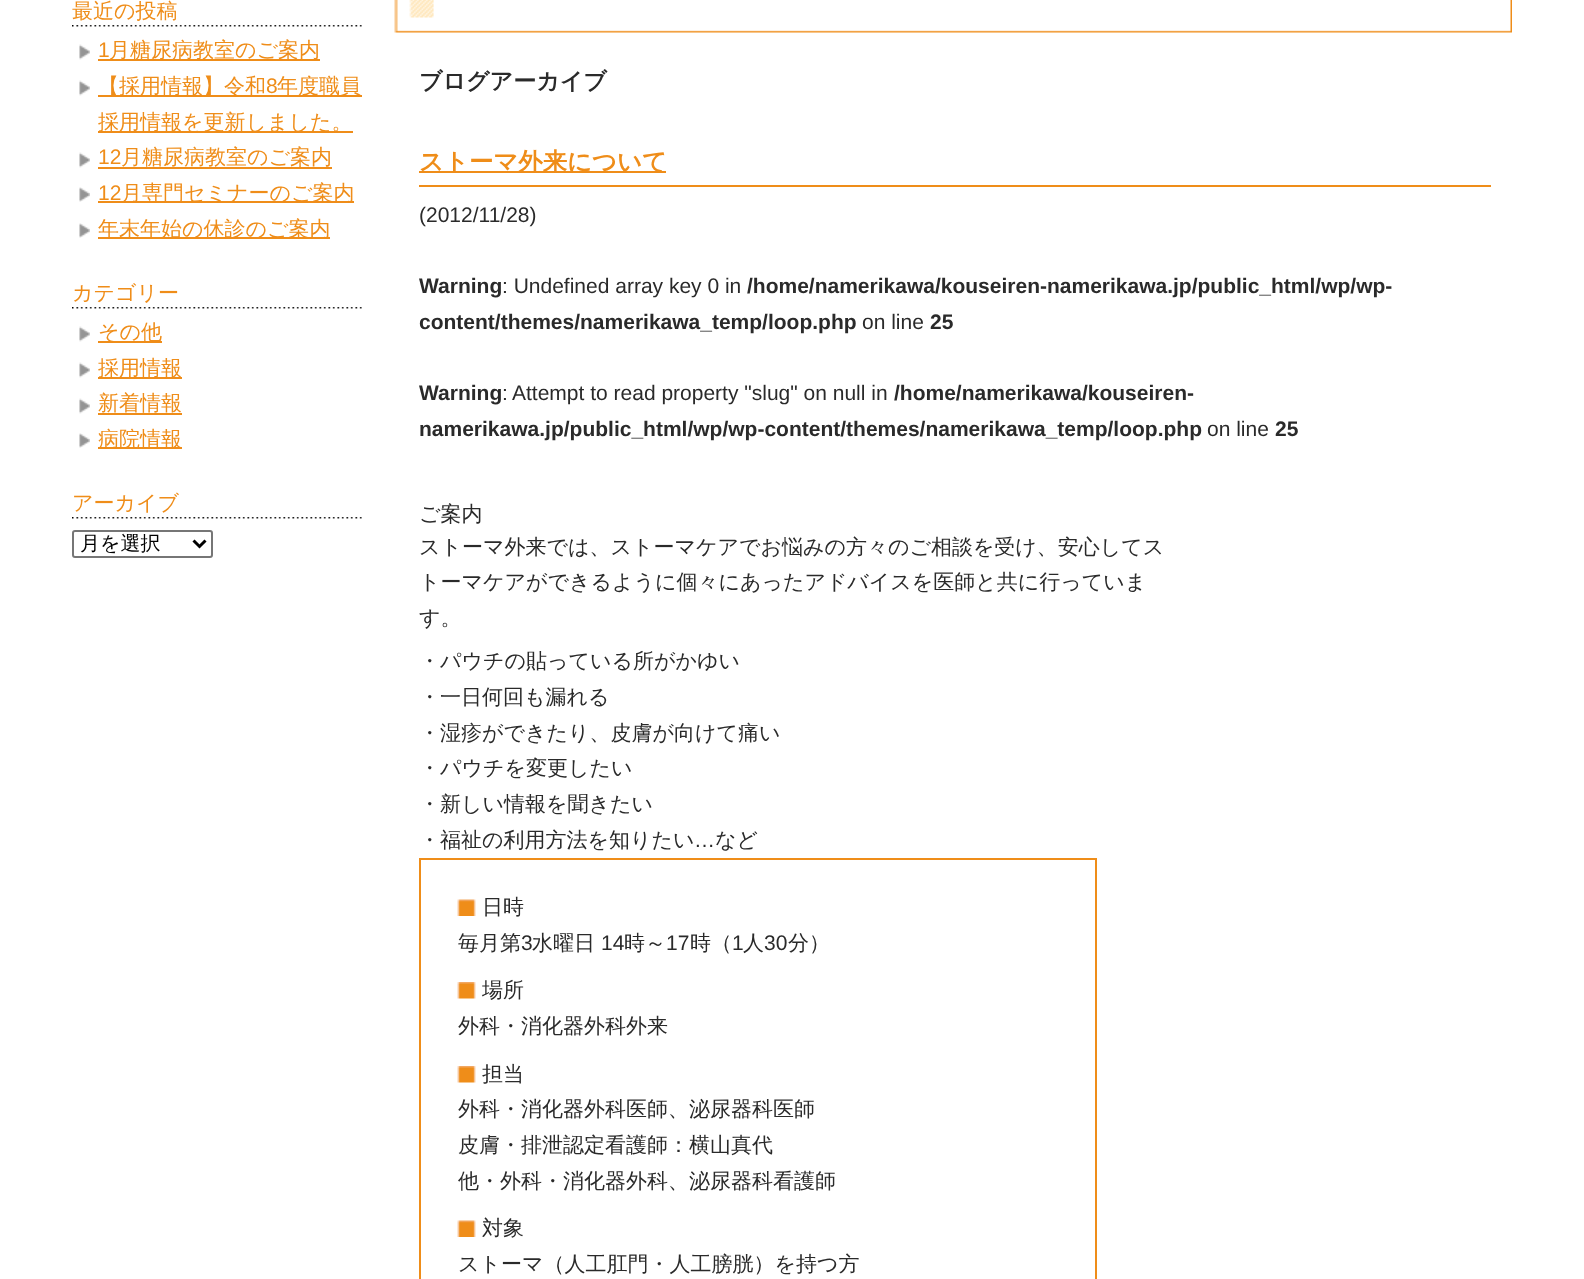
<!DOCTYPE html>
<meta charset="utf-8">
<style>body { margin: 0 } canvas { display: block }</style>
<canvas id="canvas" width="1584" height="1279"></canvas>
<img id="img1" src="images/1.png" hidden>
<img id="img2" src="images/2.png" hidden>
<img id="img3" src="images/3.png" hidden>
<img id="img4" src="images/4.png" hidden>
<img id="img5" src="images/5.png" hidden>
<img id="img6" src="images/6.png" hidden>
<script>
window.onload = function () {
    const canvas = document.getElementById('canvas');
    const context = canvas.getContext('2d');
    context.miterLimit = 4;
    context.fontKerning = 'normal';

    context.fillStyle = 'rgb(255, 255, 255)';
    context.fillRect(0, 0, 1584, 1279);
    context.drawImage(document.getElementById('img1'), 72, 25, 290, 2);
    context.drawImage(document.getElementById('img2'), 79, 44, 11, 16);
    context.fillStyle = 'rgb(239, 141, 25)';
    context.fillRect(98, 59, 222, 2);
    context.drawImage(document.getElementById('img2'), 79, 80, 11, 16);
    context.fillRect(98, 95, 264, 2);
    context.fillRect(98, 131, 255, 2);
    context.drawImage(document.getElementById('img2'), 79, 152, 11, 16);
    context.fillRect(98, 167, 234, 2);
    context.drawImage(document.getElementById('img3'), 79, 187, 11, 15);
    context.fillRect(98, 201, 256, 2);
    context.drawImage(document.getElementById('img3'), 79, 223, 11, 15);
    context.fillRect(98, 237, 232, 2);
    context.drawImage(document.getElementById('img1'), 72, 307, 290, 2);
    context.drawImage(document.getElementById('img2'), 79, 326, 11, 16);
    context.fillRect(98, 341, 64, 2);
    context.drawImage(document.getElementById('img2'), 79, 362, 11, 16);
    context.fillRect(98, 377, 84, 2);
    context.drawImage(document.getElementById('img2'), 79, 398, 11, 16);
    context.fillRect(98, 413, 84, 2);
    context.drawImage(document.getElementById('img3'), 79, 433, 11, 15);
    context.fillRect(98, 447, 84, 2);
    context.drawImage(document.getElementById('img1'), 72, 517, 290, 2);
    context.beginPath();
    context.roundRect(73, 531, 139, 26, 2);
    context.strokeStyle = 'rgb(118, 118, 118)';
    context.lineWidth = 2;
    context.stroke();
    context.beginPath();
    context.moveTo(193.5, 540.5);
    context.lineTo(199.5, 546.5);
    context.lineTo(205.5, 540.5);
    context.strokeStyle = 'rgb(0, 0, 0)';
    context.lineWidth = 3;
    context.stroke();
    context.drawImage(document.getElementById('img4'), 394, 0, 1118, 33);
    context.fillRect(419, 185, 1072, 2);
    context.fillRect(419, 171, 247, 2);
    context.strokeStyle = 'rgb(239, 141, 25)';
    context.lineWidth = 2;
    context.strokeRect(420, 859, 676, 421);
    context.drawImage(document.getElementById('img5'), 457, 899, 19, 17);
    context.drawImage(document.getElementById('img6'), 457, 982, 19, 17);
    context.drawImage(document.getElementById('img6'), 457, 1066, 19, 17);
    context.drawImage(document.getElementById('img5'), 457, 1220, 19, 17);
    context.font = '500 21px WenQuanYi Zen Hei';
    context.fillText('最近の投稿', 72, 18);
    context.font = '21px Liberation Sans';
    context.fillText('1', 98, 57);
    context.font = '500 21px WenQuanYi Zen Hei';
    context.fillText('月糖尿病教室のご案内', 109, 57);
    context.fillText('【採用情報】令和', 98, 93);
    context.font = '21px Liberation Sans';
    context.fillText('8', 266, 93);
    context.font = '500 21px WenQuanYi Zen Hei';
    context.fillText('年度職員', 277, 93);
    context.fillText('採用情報を更新しました。', 98, 129);
    context.font = '21px Liberation Sans';
    context.fillText('12', 98, 164);
    context.font = '500 21px WenQuanYi Zen Hei';
    context.fillText('月糖尿病教室のご案内', 121, 164);
    context.font = '21px Liberation Sans';
    context.fillText('12', 98, 200);
    context.font = '500 21px WenQuanYi Zen Hei';
    context.fillText('月専門セミナーのご案内', 121, 200);
    context.fillText('年末年始の休診のご案内', 98, 236);
    context.fillText('カテゴリー', 72, 300);
    context.fillText('その他', 98, 339);
    context.fillText('採用情報', 98, 375);
    context.fillText('新着情報', 98, 410);
    context.fillText('病院情報', 98, 446);
    context.fillText('アーカイブ', 72, 510);
    context.font = '500 20px WenQuanYi Zen Hei';
    context.fillStyle = 'rgb(0, 0, 0)';
    context.fillText('月を選択', 80, 550);
    context.font = 'bold 23px WenQuanYi Zen Hei';
    context.fillStyle = 'rgb(42, 42, 42)';
    context.fillText('ブログアーカイブ', 419, 89);
    context.font = 'bold 24.4px WenQuanYi Zen Hei';
    context.fillStyle = 'rgb(239, 141, 25)';
    context.fillText('ストーマ外来について', 419, 170);
    context.font = '21px Liberation Sans';
    context.fillStyle = 'rgb(42, 42, 42)';
    context.fillText('(2012/11/28)', 419, 222);
    context.font = 'bold 21px Liberation Sans';
    context.fillText('Warning', 419, 293);
    context.font = '21px Liberation Sans';
    context.fillText(': Undefined array key 0 in', 502, 293);
    context.font = 'bold 21px Liberation Sans';
    context.fillText('/home/namerikawa/kouseiren-namerikawa.jp/public_html/wp/wp-', 747, 293);
    context.fillText('content/themes/namerikawa_temp/loop.php', 419, 329);
    context.font = '21px Liberation Sans';
    context.fillText('on line', 862, 329);
    context.font = 'bold 21px Liberation Sans';
    context.fillText('25', 930, 329);
    context.fillText('Warning', 419, 400);
    context.font = '21px Liberation Sans';
    context.fillText(':', 502, 400);
    context.fillText('Attempt to read property "slug" on null in', 512, 400);
    context.font = 'bold 21px Liberation Sans';
    context.fillText('/home/namerikawa/kouseiren-', 894, 400);
    context.fillText('namerikawa.jp/public_html/wp/wp-content/themes/namerikawa_temp/loop.php', 419, 436);
    context.font = '21px Liberation Sans';
    context.fillText('on line', 1207, 436);
    context.font = 'bold 21px Liberation Sans';
    context.fillText('25', 1275, 436);
    context.font = '500 21px WenQuanYi Zen Hei';
    context.fillText('ご案内', 419, 521);
    context.fillText('ストーマ外来では、ストーマケアでお悩みの方々のご相談を受け、安心してス', 419, 554);
    context.fillText('トーマケアができるように個々にあったアドバイスを医師と共に行っていま', 419, 589);
    context.fillText('す。', 419, 625);
    context.fillText('・パウチの貼っている所がかゆい', 419, 668);
    context.fillText('・一日何回も漏れる', 419, 704);
    context.fillText('・湿疹ができたり、皮膚が向けて痛い', 419, 740);
    context.fillText('・パウチを変更したい', 419, 775);
    context.fillText('・新しい情報を聞きたい', 419, 811);
    context.fillText('・福祉の利用方法を知りたい', 419, 847);
    context.font = '21px Liberation Sans';
    context.fillText('…', 694, 847);
    context.font = '500 21px WenQuanYi Zen Hei';
    context.fillText('など', 715, 847);
    context.fillText('日時', 482, 914);
    context.fillText('毎月第', 458, 950);
    context.font = '21px Liberation Sans';
    context.fillText('3', 521, 950);
    context.font = '500 21px WenQuanYi Zen Hei';
    context.fillText('水曜日', 532, 950);
    context.font = '21px Liberation Sans';
    context.fillText('14', 601, 950);
    context.font = '500 21px WenQuanYi Zen Hei';
    context.fillText('時～', 624, 950);
    context.font = '21px Liberation Sans';
    context.fillText('17', 666, 950);
    context.font = '500 21px WenQuanYi Zen Hei';
    context.fillText('時（', 690, 950);
    context.font = '21px Liberation Sans';
    context.fillText('1', 732, 950);
    context.font = '500 21px WenQuanYi Zen Hei';
    context.fillText('人', 743, 950);
    context.font = '21px Liberation Sans';
    context.fillText('30', 764, 950);
    context.font = '500 21px WenQuanYi Zen Hei';
    context.fillText('分）', 788, 950);
    context.fillText('場所', 482, 997);
    context.fillText('外科・消化器外科外来', 458, 1033);
    context.fillText('担当', 482, 1081);
    context.fillText('外科・消化器外科医師、泌尿器科医師', 458, 1116);
    context.fillText('皮膚・排泄認定看護師：横山真代', 458, 1152);
    context.fillText('他・外科・消化器外科、泌尿器科看護師', 458, 1188);
    context.fillText('対象', 482, 1235);
    context.fillText('ストーマ（人工肛門・人工膀胱）を持つ方', 458, 1271);
};
</script>
